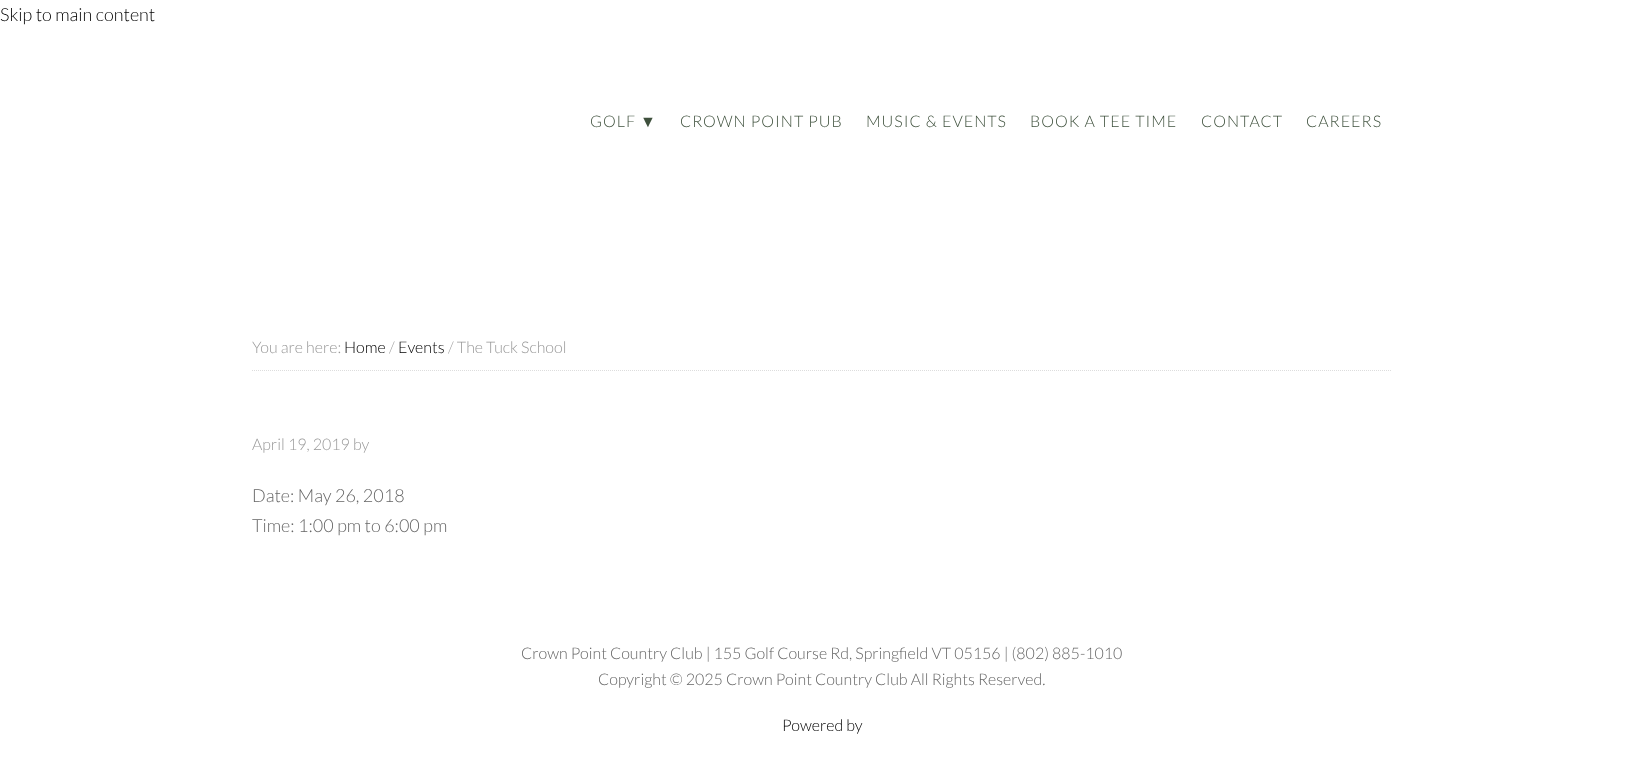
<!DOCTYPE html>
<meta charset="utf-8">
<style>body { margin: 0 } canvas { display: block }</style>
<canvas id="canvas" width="1644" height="764"></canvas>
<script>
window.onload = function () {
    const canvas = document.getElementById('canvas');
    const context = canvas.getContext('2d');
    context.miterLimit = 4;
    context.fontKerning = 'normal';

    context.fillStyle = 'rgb(255, 255, 255)';
    context.fillRect(0, 0, 1644, 764);
    context.beginPath();
    context.moveTo(252, 370.5);
    context.lineTo(1392, 370.5);
    context.strokeStyle = 'rgb(221, 221, 221)';
    context.setLineDash([1, 1]);
    context.stroke();
    context.font = '300 18px Lato';
    context.fillStyle = 'rgb(0, 0, 0)';
    context.fillText('Skip to main content', 0, 21);
    context.letterSpacing = '1px';
    context.font = '300 16px Lato';
    context.fillStyle = 'rgb(62, 80, 60)';
    context.fillText('GOLF', 590, 127);
    context.font = '16px Liberation Sans';
    context.fillText('▼', 640, 127);
    context.font = '300 16px Lato';
    context.fillText('CROWN POINT PUB', 680, 127);
    context.fillText('MUSIC & EVENTS', 866, 127);
    context.fillText('BOOK A TEE TIME', 1030, 127);
    context.fillText('CONTACT', 1201, 127);
    context.fillText('CAREERS', 1306, 127);
    context.letterSpacing = '0px';
    context.fillStyle = 'rgb(153, 153, 153)';
    context.fillText('You are here:', 252, 353);
    context.fillStyle = 'rgb(0, 0, 0)';
    context.fillText('Home', 344, 353);
    context.fillStyle = 'rgb(153, 153, 153)';
    context.fillText('/', 389, 353);
    context.fillStyle = 'rgb(0, 0, 0)';
    context.fillText('Events', 398, 353);
    context.fillStyle = 'rgb(153, 153, 153)';
    context.fillText('/ The Tuck School', 448, 353);
    context.fillText('April 19, 2019 by', 252, 450);
    context.font = '300 18px Lato';
    context.fillStyle = 'rgb(102, 102, 102)';
    context.fillText('Date: May 26, 2018', 252, 502);
    context.fillText('Time: 1:00 pm to 6:00 pm', 252, 532);
    context.font = '300 16px Lato';
    context.fillText('Crown Point Country Club | 155 Golf Course Rd, Springfield VT 05156 | (802) 885-1010', 521, 659);
    context.fillText('Copyright © 2025 Crown Point Country Club All Rights Reserved.', 598, 685);
    context.fillStyle = 'rgb(0, 0, 0)';
    context.fillText('Powered by', 782, 731);
};
</script>
